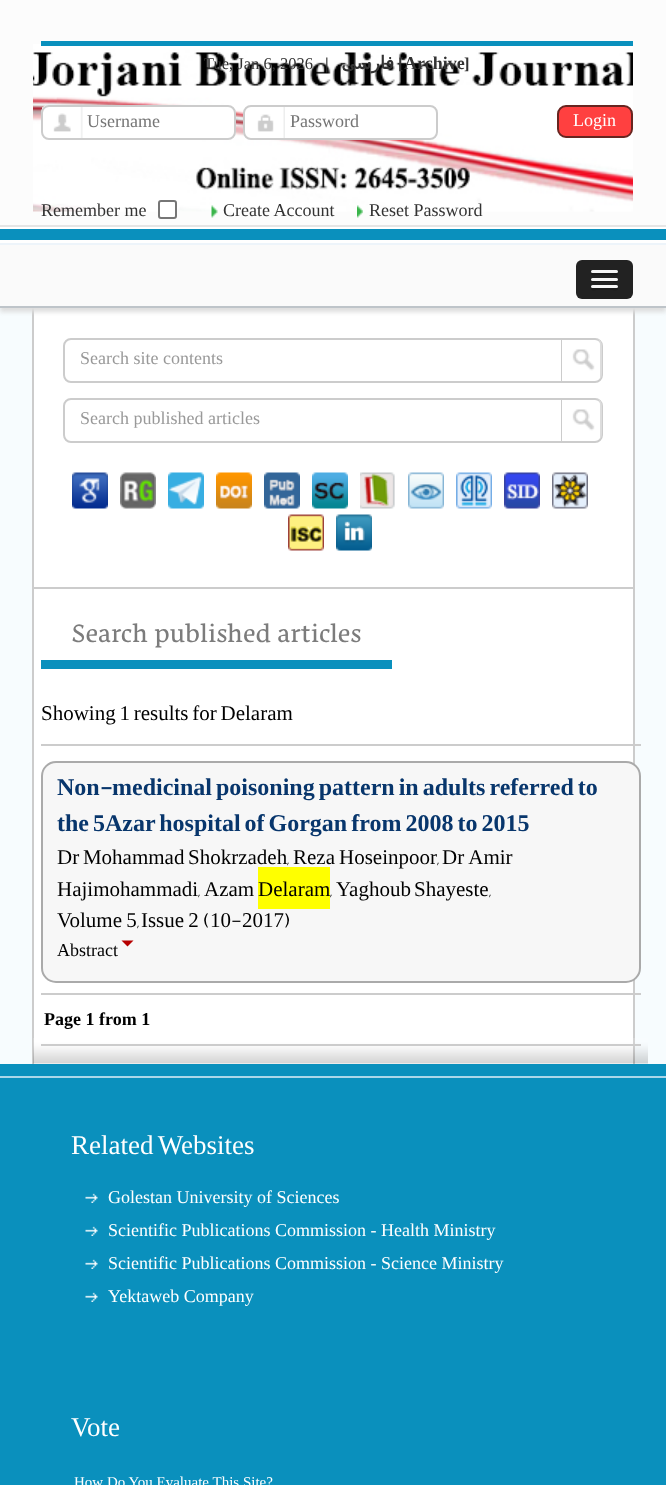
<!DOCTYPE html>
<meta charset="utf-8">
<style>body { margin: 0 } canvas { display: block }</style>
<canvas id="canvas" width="666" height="1485"></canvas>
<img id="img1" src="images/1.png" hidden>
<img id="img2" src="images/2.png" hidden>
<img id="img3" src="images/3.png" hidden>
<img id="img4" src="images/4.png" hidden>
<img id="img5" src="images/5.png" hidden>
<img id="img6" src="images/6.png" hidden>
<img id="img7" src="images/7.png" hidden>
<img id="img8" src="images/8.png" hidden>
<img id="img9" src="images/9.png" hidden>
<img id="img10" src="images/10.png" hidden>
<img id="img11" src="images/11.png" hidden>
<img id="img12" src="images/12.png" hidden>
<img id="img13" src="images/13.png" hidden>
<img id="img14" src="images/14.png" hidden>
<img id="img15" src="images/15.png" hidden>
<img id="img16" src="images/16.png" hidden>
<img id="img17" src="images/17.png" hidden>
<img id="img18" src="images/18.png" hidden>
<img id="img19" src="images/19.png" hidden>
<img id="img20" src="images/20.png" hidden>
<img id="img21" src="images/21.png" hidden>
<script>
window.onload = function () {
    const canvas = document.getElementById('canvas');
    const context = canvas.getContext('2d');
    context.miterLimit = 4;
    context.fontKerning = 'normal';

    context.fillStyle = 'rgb(247, 252, 254)';
    context.fillRect(0, 0, 666, 1485);
    context.fillStyle = 'rgb(252, 252, 252)';
    context.fillRect(0, 0, 666, 225);
    context.fillStyle = 'rgb(229, 229, 229)';
    context.fillRect(0, 225, 666, 2);
    context.drawImage(document.getElementById('img1'), 33, 44, 600, 168);
    context.fillStyle = 'rgb(10, 144, 189)';
    context.fillRect(41, 41, 592, 5);
    context.fillStyle = 'rgb(255, 255, 255)';
    context.beginPath();
    context.roundRect(41, 105, 195, 35, 8);
    context.fill();
    context.drawImage(document.getElementById('img2'), 42, 105, 41, 35);
    context.beginPath();
    context.roundRect(42, 106, 193, 33, 7);
    context.strokeStyle = 'rgb(204, 204, 204)';
    context.lineWidth = 2;
    context.stroke();
    context.beginPath();
    context.roundRect(243, 105, 195, 35, 8);
    context.fill();
    context.drawImage(document.getElementById('img3'), 257, 107, 28, 31);
    context.beginPath();
    context.roundRect(244, 106, 193, 33, 7);
    context.stroke();
    context.fillStyle = 'rgb(255, 64, 64)';
    context.beginPath();
    context.roundRect(558, 106, 74, 31, 8);
    context.fill();
    context.strokeStyle = 'rgb(103, 37, 32)';
    context.stroke();
    context.fillStyle = 'rgb(255, 255, 255)';
    context.beginPath();
    context.roundRect(159, 201, 17, 17, 2);
    context.fill();
    context.strokeStyle = 'rgb(118, 118, 118)';
    context.stroke();
    context.drawImage(document.getElementById('img4'), 211, 205, 7, 13);
    context.drawImage(document.getElementById('img5'), 357, 205, 6, 13);
    context.fillStyle = 'rgb(10, 144, 189)';
    context.fillRect(0, 229, 666, 11);
    context.fillStyle = 'rgb(255, 255, 255)';
    context.fillRect(0, 227, 666, 2);
    context.fillRect(0, 240, 666, 3);
    context.fillRect(34, 308, 599, 756);
    context.fillStyle = 'rgb(204, 204, 204)';
    context.fillRect(633, 308, 2, 756);
    context.fillRect(32, 308, 2, 756);
    context.fillStyle = 'rgb(221, 221, 221)';
    context.filter = 'blur(2px)';
    context.beginPath();
    context.rect(0, 248, 666, 64);
    context.fill();
    context.filter = 'none';
    context.fillStyle = 'rgb(250, 250, 250)';
    context.fillRect(0, 245, 666, 61);
    context.fillStyle = 'rgb(237, 244, 250)';
    context.fillRect(0, 243, 666, 2);
    context.fillStyle = 'rgb(190, 196, 201)';
    context.fillRect(0, 306, 666, 2);
    context.fillStyle = 'rgb(34, 34, 34)';
    context.beginPath();
    context.roundRect(576, 260, 57, 39, 6);
    context.fill();
    context.fillStyle = 'rgb(26, 26, 26)';
    context.beginPath();
    context.moveTo(591.5, 272.5);
    context.lineTo(591, 274);
    context.bezierCurveTo(591.5, 276, 596, 275, 596.5, 275);
    context.lineTo(612.5, 275);
    context.bezierCurveTo(613, 275, 617.5, 276, 618, 274);
    context.lineTo(617.5, 272.5);
    context.lineTo(616.5, 273);
    context.lineTo(592.5, 273);
    context.closePath();
    context.fill();
    context.fillStyle = 'rgb(245, 245, 245)';
    context.beginPath();
    context.roundRect(591, 270, 27, 3, 1.5);
    context.fill();
    context.fillStyle = 'rgb(26, 26, 26)';
    context.beginPath();
    context.moveTo(591, 280);
    context.bezierCurveTo(589.5, 283, 596.5, 282, 596.5, 282);
    context.lineTo(612.5, 282);
    context.bezierCurveTo(612.5, 282, 619.5, 283, 618, 280);
    context.bezierCurveTo(617.5, 280, 617, 280.5, 616.5, 280.5);
    context.lineTo(592.5, 280.5);
    context.bezierCurveTo(592, 280.5, 591.5, 280, 591, 280);
    context.closePath();
    context.fill();
    context.fillStyle = 'rgb(245, 245, 245)';
    context.beginPath();
    context.roundRect(591, 278, 27, 3, 1.5);
    context.fill();
    context.fillStyle = 'rgb(26, 26, 26)';
    context.beginPath();
    context.moveTo(591.5, 287.5);
    context.lineTo(591, 289);
    context.bezierCurveTo(591.5, 291, 596, 290, 596.5, 290);
    context.lineTo(612.5, 290);
    context.bezierCurveTo(613, 290, 617.5, 291, 618, 289);
    context.lineTo(617.5, 287.5);
    context.lineTo(616.5, 288);
    context.lineTo(592.5, 288);
    context.closePath();
    context.fill();
    context.fillStyle = 'rgb(245, 245, 245)';
    context.beginPath();
    context.roundRect(591, 285, 27, 3, 1.5);
    context.fill();
    context.fillStyle = 'rgb(204, 204, 204)';
    context.fillRect(33, 587, 600, 2);
    context.beginPath();
    context.roundRect(64, 339, 538, 43, 7);
    context.strokeStyle = 'rgb(204, 204, 204)';
    context.stroke();
    context.drawImage(document.getElementById('img6'), 572, 349, 23, 22);
    context.fillStyle = 'rgb(221, 221, 221)';
    context.beginPath();
    context.moveTo(597, 339);
    context.bezierCurveTo(602, 340, 602, 344, 602, 348);
    context.lineTo(602, 372);
    context.bezierCurveTo(602, 375, 602, 377, 600, 379);
    context.lineTo(600, 345);
    context.bezierCurveTo(600, 342, 599, 340, 597, 339);
    context.closePath();
    context.fill();
    context.fillStyle = 'rgb(204, 204, 204)';
    context.fillRect(561, 339, 1, 42);
    context.beginPath();
    context.roundRect(64, 399, 538, 43, 7);
    context.stroke();
    context.drawImage(document.getElementById('img6'), 572, 409, 23, 22);
    context.fillStyle = 'rgb(221, 221, 221)';
    context.beginPath();
    context.moveTo(597, 399);
    context.bezierCurveTo(602, 400, 602, 404, 602, 408);
    context.lineTo(602, 432);
    context.bezierCurveTo(602, 435, 602, 437, 600, 439);
    context.lineTo(600, 405);
    context.bezierCurveTo(600, 402, 599, 400, 597, 399);
    context.closePath();
    context.fill();
    context.fillStyle = 'rgb(204, 204, 204)';
    context.fillRect(561, 399, 1, 42);
    context.drawImage(document.getElementById('img7'), 72, 472, 36, 37);
    context.drawImage(document.getElementById('img8'), 120, 472, 36, 37);
    context.drawImage(document.getElementById('img9'), 168, 472, 36, 37);
    context.drawImage(document.getElementById('img10'), 216, 472, 36, 37);
    context.drawImage(document.getElementById('img11'), 264, 472, 36, 37);
    context.drawImage(document.getElementById('img12'), 312, 472, 36, 37);
    context.drawImage(document.getElementById('img13'), 360, 472, 35, 37);
    context.drawImage(document.getElementById('img14'), 408, 472, 36, 37);
    context.drawImage(document.getElementById('img15'), 456, 472, 36, 37);
    context.drawImage(document.getElementById('img16'), 504, 472, 36, 37);
    context.drawImage(document.getElementById('img17'), 552, 472, 36, 37);
    context.drawImage(document.getElementById('img18'), 288, 514, 36, 37);
    context.drawImage(document.getElementById('img19'), 336, 514, 36, 37);
    context.drawImage(document.getElementById('img20'), 33, 1038, 615, 26);
    context.fillStyle = 'rgb(10, 144, 189)';
    context.fillRect(41, 660, 351, 9);
    context.fillStyle = 'rgb(204, 204, 204)';
    context.fillRect(41, 744, 600, 2);
    context.fillStyle = 'rgb(247, 247, 247)';
    context.beginPath();
    context.roundRect(42, 762, 598, 220, 14);
    context.fill();
    context.strokeStyle = 'rgb(170, 170, 170)';
    context.stroke();
    context.fillStyle = 'rgb(255, 255, 0)';
    context.fillRect(258, 867, 72, 42);
    context.fillStyle = 'rgb(182, 0, 0)';
    context.beginPath();
    context.moveTo(121.5, 940.5);
    context.lineTo(133.5, 940.5);
    context.lineTo(127.5, 946.5);
    context.closePath();
    context.fill();
    context.fillStyle = 'rgb(204, 204, 204)';
    context.fillRect(41, 993, 600, 2);
    context.fillRect(41, 1044, 600, 2);
    context.fillStyle = 'rgb(10, 144, 189)';
    context.fillRect(0, 1064, 666, 421);
    context.fillStyle = 'rgb(171, 215, 233)';
    context.fillRect(0, 1076, 666, 2);
    context.drawImage(document.getElementById('img21'), 85, 1193, 13, 10);
    context.drawImage(document.getElementById('img21'), 85, 1226, 13, 10);
    context.drawImage(document.getElementById('img21'), 85, 1259, 13, 10);
    context.drawImage(document.getElementById('img21'), 85, 1292, 13, 10);
    context.font = '16.5px Liberation Serif';
    context.fillStyle = 'rgb(51, 51, 51)';
    context.fillText('Tue, Jan 6, 2026', 204, 69);
    context.font = 'bold 16.5px Liberation Serif';
    context.fillText('|', 325, 69);
    context.direction = 'rtl';
    context.font = 'bold 18px DejaVu Sans';
    context.fillText('فارسی', 394, 69);
    context.direction = 'ltr';
    context.font = 'bold 16.5px Liberation Serif';
    context.fillText('[', 398, 69);
    context.font = 'bold 18px Liberation Serif';
    context.fillText('Archive', 404, 69);
    context.font = 'bold 16.5px Liberation Serif';
    context.fillText(']', 464, 69);
    context.font = '18px Liberation Serif';
    context.fillStyle = 'rgb(117, 117, 117)';
    context.fillText('Username', 87, 127);
    context.fillText('Password', 290, 127);
    context.fillStyle = 'rgb(255, 255, 255)';
    context.fillText('Login', 573, 126);
    context.fillStyle = 'rgb(51, 51, 51)';
    context.fillText('Remember me', 41, 216);
    context.fillText('Create Account', 223, 216);
    context.fillText('Reset Password', 369, 216);
    context.fillStyle = 'rgb(153, 153, 153)';
    context.fillText('Search site contents', 80, 364);
    context.fillText('Search published articles', 80, 424);
    context.font = '33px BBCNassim';
    context.fillStyle = 'rgb(124, 124, 124)';
    context.fillText('Search published articles', 71, 642);
    context.wordSpacing = '-1.5px';
    context.font = '21px Liberation Serif';
    context.fillStyle = 'rgb(0, 0, 0)';
    context.fillText('Showing 1 results for Delaram', 41, 720);
    context.wordSpacing = '0px';
    context.font = 'bold 24px Liberation Serif';
    context.fillStyle = 'rgb(8, 54, 108)';
    context.fillText('Non', 57, 795);
    context.font = 'bold 24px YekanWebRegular';
    context.fillText('-', 100, 795);
    context.wordSpacing = '-2px';
    context.font = 'bold 24px Liberation Serif';
    context.fillText('medicinal poisoning pattern in adults referred to', 112, 795);
    context.fillText('the 5Azar hospital of Gorgan from 2008 to 2015', 57, 831);
    context.wordSpacing = '-1.5px';
    context.font = '21px Liberation Serif';
    context.fillStyle = 'rgb(0, 0, 0)';
    context.fillText('Dr Mohammad', 57, 864);
    context.wordSpacing = '0px';
    context.fillText('Shokrzadeh', 188, 864);
    context.font = '21px YekanWebRegular';
    context.fillText(',', 287, 864);
    context.font = '21px Liberation Serif';
    context.fillText('Reza', 293, 864);
    context.fillText('Hoseinpoor', 339, 864);
    context.font = '21px YekanWebRegular';
    context.fillText(',', 437, 864);
    context.font = '21px Liberation Serif';
    context.fillText('Dr Amir', 442, 864);
    context.fillText('Hajimohammadi', 57, 896);
    context.font = '21px YekanWebRegular';
    context.fillText(',', 198, 896);
    context.font = '21px Liberation Serif';
    context.fillText('Azam', 204, 896);
    context.fillText('Delaram', 258, 896);
    context.font = '21px YekanWebRegular';
    context.fillText(',', 330, 896);
    context.font = '21px Liberation Serif';
    context.fillText('Yaghoub', 336, 896);
    context.fillText('Shayeste', 414, 896);
    context.font = '21px YekanWebRegular';
    context.fillText(',', 489, 896);
    context.wordSpacing = '-1px';
    context.font = '21px Liberation Serif';
    context.fillText('Volume 5 Issue 2', 57, 927);
    context.wordSpacing = '0px';
    context.font = '21px YekanWebRegular';
    context.fillText('(', 203, 927);
    context.font = '21px Liberation Serif';
    context.fillText('10', 210, 927);
    context.font = '21px YekanWebRegular';
    context.fillText('-', 231, 927);
    context.font = '21px Liberation Serif';
    context.fillText('2017', 242, 927);
    context.font = '21px YekanWebRegular';
    context.fillText(')', 284, 927);
    context.fillText(',', 137, 927);
    context.font = '18px Liberation Serif';
    context.fillText('Abstract', 57, 956);
    context.font = 'bold 18px Liberation Serif';
    context.fillText('Page 1 from 1', 44, 1025);
    context.wordSpacing = '-2px';
    context.font = '27px Liberation Serif';
    context.fillStyle = 'rgb(255, 255, 255)';
    context.fillText('Related Websites', 71, 1154);
    context.wordSpacing = '0px';
    context.font = '18px Liberation Serif';
    context.fillText('Golestan University of Sciences', 108, 1203);
    context.fillText('Scientific Publications Commission - Health Ministry', 108, 1236);
    context.fillText('Scientific Publications Commission - Science Ministry', 108, 1269);
    context.fillText('Yektaweb Company', 108, 1302);
    context.font = '27px Liberation Serif';
    context.fillText('Vote', 71, 1436);
    context.font = '15px Liberation Serif';
    context.fillText('How Do You Evaluate This Site?', 74, 1487);
};
</script>
